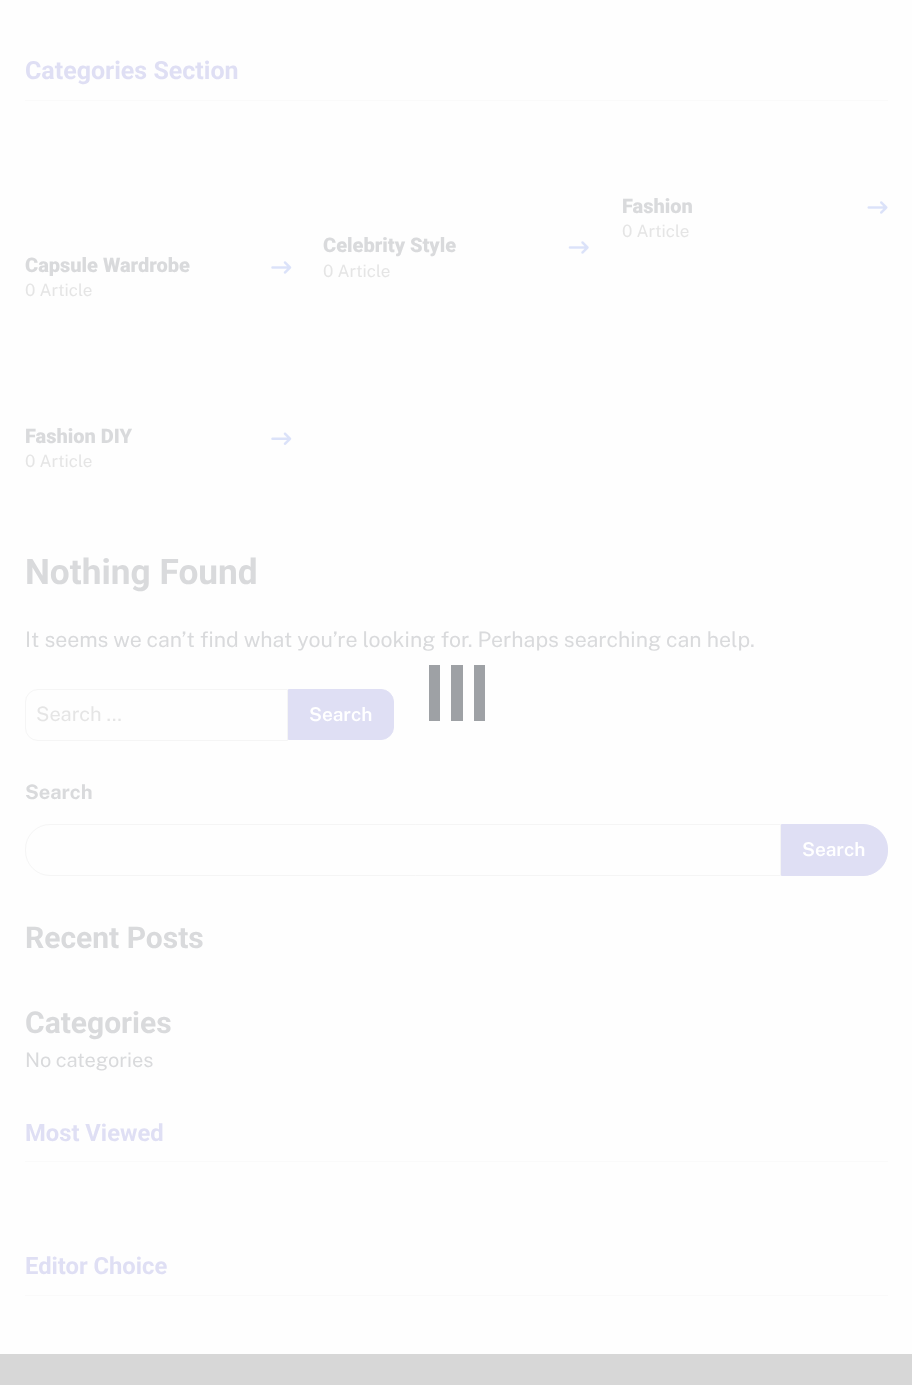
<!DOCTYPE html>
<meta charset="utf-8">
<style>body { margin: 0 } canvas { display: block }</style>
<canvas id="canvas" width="912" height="1385"></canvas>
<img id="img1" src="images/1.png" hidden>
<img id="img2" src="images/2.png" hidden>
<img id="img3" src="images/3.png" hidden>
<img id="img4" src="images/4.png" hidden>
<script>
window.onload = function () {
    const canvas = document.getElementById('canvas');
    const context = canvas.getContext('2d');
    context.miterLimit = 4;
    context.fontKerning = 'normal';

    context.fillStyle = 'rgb(254, 254, 254)';
    context.fillRect(0, 0, 912, 1385);
    context.fillStyle = 'rgb(250, 250, 250)';
    context.fillRect(25, 100, 863, 1);
    context.drawImage(document.getElementById('img1'), 867, 201, 21, 13);
    context.drawImage(document.getElementById('img2'), 271, 261, 21, 13);
    context.drawImage(document.getElementById('img3'), 568, 241, 21, 13);
    context.drawImage(document.getElementById('img4'), 271, 432, 21, 13);
    context.beginPath();
    context.roundRect(25.5, 689.5, 262, 51, [12.5, 0, 0, 12.5]);
    context.strokeStyle = 'rgb(245, 245, 245)';
    context.stroke();
    context.fillStyle = 'rgb(223, 223, 244)';
    context.beginPath();
    context.roundRect(288.5, 689.5, 105, 50, [0, 12.5, 12.5, 0]);
    context.fill();
    context.strokeStyle = 'rgb(223, 223, 244)';
    context.stroke();
    context.beginPath();
    context.roundRect(25.5, 824.5, 755, 51, [24.5, 0, 0, 24.5]);
    context.strokeStyle = 'rgb(245, 245, 245)';
    context.stroke();
    context.beginPath();
    context.roundRect(781.5, 824.5, 106, 51, [0, 24.5, 24.5, 0]);
    context.fill();
    context.strokeStyle = 'rgb(223, 223, 244)';
    context.stroke();
    context.fillStyle = 'rgb(250, 250, 250)';
    context.fillRect(25, 1161, 863, 1);
    context.fillStyle = 'rgb(158, 161, 165)';
    context.fillRect(474, 665, 11, 56);
    context.fillRect(451, 665, 12, 56);
    context.fillRect(429, 665, 11, 56);
    context.fillStyle = 'rgb(250, 250, 250)';
    context.fillRect(25, 1295, 863, 1);
    context.fillStyle = 'rgb(215, 215, 215)';
    context.fillRect(0, 1354, 912, 31);
    context.font = 'bold 25px Roboto';
    context.fillStyle = 'rgb(223, 223, 244)';
    context.fillText('Categories Section', 25, 79);
    context.font = '900 20px Roboto';
    context.fillStyle = 'rgb(217, 218, 220)';
    context.fillText('Fashion', 622, 213);
    context.font = '17px Public Sans';
    context.fillStyle = 'rgb(229, 229, 229)';
    context.fillText('0 Article', 622, 237);
    context.font = '900 20px Roboto';
    context.fillStyle = 'rgb(217, 218, 220)';
    context.fillText('Capsule Wardrobe', 25, 272);
    context.font = '17px Public Sans';
    context.fillStyle = 'rgb(229, 229, 229)';
    context.fillText('0 Article', 25, 296);
    context.font = '900 20px Roboto';
    context.fillStyle = 'rgb(217, 218, 220)';
    context.fillText('Celebrity Style', 323, 252);
    context.font = '17px Public Sans';
    context.fillStyle = 'rgb(229, 229, 229)';
    context.fillText('0 Article', 323, 277);
    context.font = '900 20px Roboto';
    context.fillStyle = 'rgb(217, 218, 220)';
    context.fillText('Fashion DIY', 25, 443);
    context.font = '17px Public Sans';
    context.fillStyle = 'rgb(229, 229, 229)';
    context.fillText('0 Article', 25, 467);
    context.font = 'bold 35.25px Roboto';
    context.fillStyle = 'rgb(217, 218, 220)';
    context.fillText('Nothing Found', 25, 584);
    context.font = '21.3px Public Sans';
    context.fillText('It seems we can’t find what you’re looking for. Perhaps searching can help.', 25, 647);
    context.font = '20px Public Sans';
    context.fillStyle = 'rgb(229, 229, 229)';
    context.fillText('Search …', 36, 721);
    context.font = '600 19px Public Sans';
    context.fillStyle = 'rgb(255, 255, 255)';
    context.fillText('Search', 309, 721);
    context.font = 'bold 20px Public Sans';
    context.fillStyle = 'rgb(217, 218, 220)';
    context.fillText('Search', 25, 799);
    context.font = '600 19px Public Sans';
    context.fillStyle = 'rgb(255, 255, 255)';
    context.fillText('Search', 802, 856);
    context.font = 'bold 30px Roboto';
    context.fillStyle = 'rgb(217, 218, 220)';
    context.fillText('Recent Posts', 25, 948);
    context.fillText('Categories', 25, 1033);
    context.font = '20px Public Sans';
    context.fillText('No categories', 25, 1067);
    context.font = 'bold 23.75px Roboto';
    context.fillStyle = 'rgb(223, 223, 244)';
    context.fillText('Most Viewed', 25, 1141);
    context.fillText('Editor Choice', 25, 1274);
};
</script>
